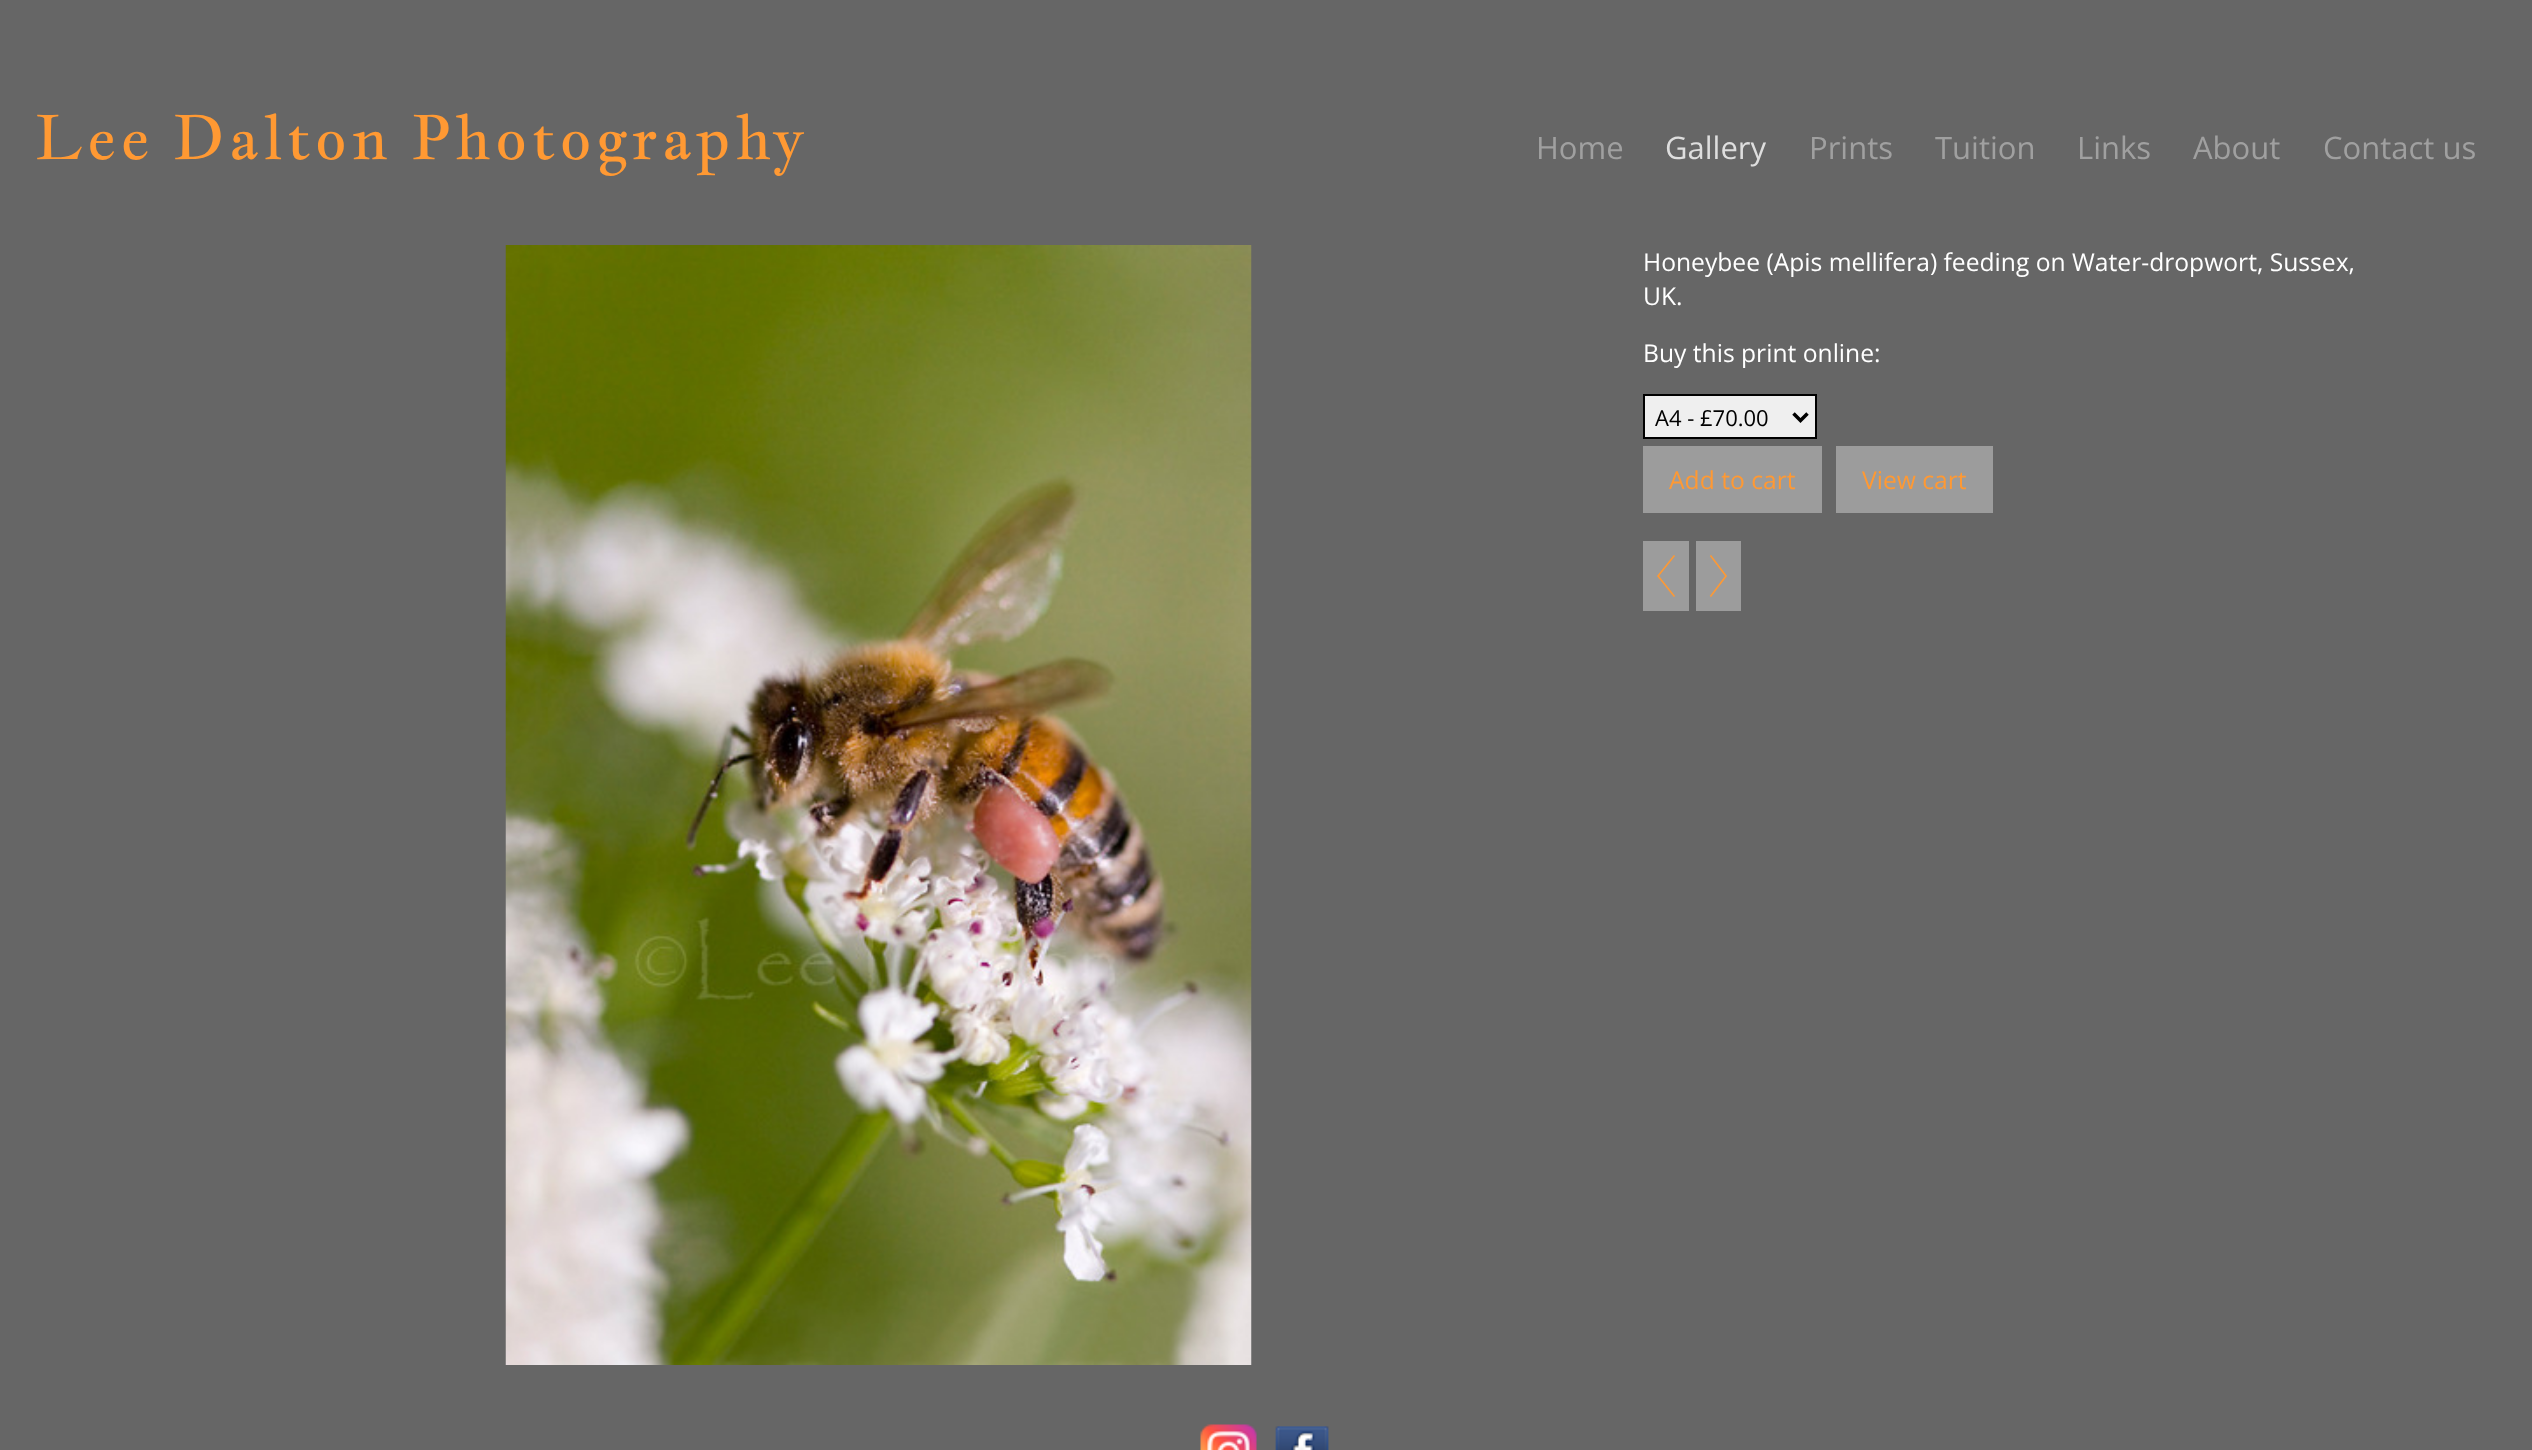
<!DOCTYPE html>
<meta charset="utf-8">
<style>body { margin: 0 } canvas { display: block }</style>
<canvas id="canvas" width="2532" height="1450"></canvas>
<img id="img1" src="images/1.png" hidden>
<img id="img2" src="images/2.png" hidden>
<img id="img3" src="images/3.png" hidden>
<script>
window.onload = function () {
    const canvas = document.getElementById('canvas');
    const context = canvas.getContext('2d');
    context.miterLimit = 4;
    context.fontKerning = 'normal';

    context.fillStyle = 'rgb(102, 102, 102)';
    context.fillRect(0, 0, 2532, 1450);
    context.drawImage(document.getElementById('img1'), 505, 245, 747, 1120);
    context.fillStyle = 'rgb(239, 239, 239)';
    context.beginPath();
    context.rect(1644, 395, 172, 43);
    context.fill();
    context.strokeStyle = 'rgb(0, 0, 0)';
    context.lineWidth = 2;
    context.stroke();
    context.beginPath();
    context.moveTo(1793.5, 413.5);
    context.lineTo(1800.5, 420.5);
    context.lineTo(1807.5, 413.5);
    context.lineWidth = 3.5;
    context.stroke();
    context.fillStyle = 'rgb(156, 156, 156)';
    context.fillRect(1643, 446, 179, 67);
    context.fillRect(1836, 446, 157, 67);
    context.fillRect(1643, 541, 46, 70);
    context.fillStyle = 'rgb(255, 153, 51)';
    context.beginPath();
    context.moveTo(1674, 597);
    context.lineTo(1657, 576);
    context.lineTo(1674, 555);
    context.lineTo(1675, 556);
    context.lineTo(1659, 576);
    context.lineTo(1675, 596);
    context.closePath();
    context.fill();
    context.beginPath();
    context.moveTo(1673.5, 597);
    context.lineTo(1657.5, 576);
    context.lineTo(1673.5, 555);
    context.lineTo(1674.5, 556);
    context.lineTo(1659, 576);
    context.lineTo(1674.5, 595.5);
    context.closePath();
    context.strokeStyle = 'rgb(255, 153, 51)';
    context.lineWidth = 0.2;
    context.stroke();
    context.fillStyle = 'rgb(156, 156, 156)';
    context.fillRect(1696, 541, 45, 70);
    context.fillStyle = 'rgb(255, 153, 51)';
    context.beginPath();
    context.moveTo(1711, 597);
    context.lineTo(1710, 596);
    context.lineTo(1725, 576);
    context.lineTo(1710, 556);
    context.lineTo(1711, 555);
    context.lineTo(1727, 576);
    context.closePath();
    context.fill();
    context.beginPath();
    context.moveTo(1711, 597);
    context.lineTo(1710, 595.5);
    context.lineTo(1725.5, 576);
    context.lineTo(1710, 556);
    context.lineTo(1711, 555);
    context.lineTo(1727, 576);
    context.closePath();
    context.stroke();
    context.drawImage(document.getElementById('img2'), 1200, 1424, 57, 26);
    context.drawImage(document.getElementById('img3'), 1275, 1426, 54, 24);
    context.letterSpacing = '3.5px';
    context.font = '61.6px Jacques Francois';
    context.fillText('Lee Dalton Photography', 35, 159);
    context.letterSpacing = '0px';
    context.font = '31px Open Sans';
    context.fillStyle = 'rgb(160, 160, 160)';
    context.fillText('Home', 1536, 159);
    context.fillStyle = 'rgb(222, 222, 222)';
    context.fillText('Gallery', 1665, 159);
    context.fillStyle = 'rgb(160, 160, 160)';
    context.fillText('Prints', 1809, 159);
    context.fillText('Tuition', 1935, 159);
    context.fillText('Links', 2077, 159);
    context.fillText('About', 2193, 159);
    context.fillText('Contact us', 2323, 159);
    context.font = '24.65px Open Sans';
    context.fillStyle = 'rgb(255, 255, 255)';
    context.fillText('Honeybee (Apis mellifera) feeding on Water-dropwort, Sussex,', 1643, 271);
    context.fillText('UK.', 1643, 305);
    context.fillText('Buy this print online:', 1643, 362);
    context.font = '22px Open Sans';
    context.fillStyle = 'rgb(0, 0, 0)';
    context.fillText('A4 - £70.00', 1655, 426);
    context.font = '24.65px Open Sans';
    context.fillStyle = 'rgb(255, 153, 51)';
    context.fillText('Add to cart', 1669, 489);
    context.fillText('View cart', 1862, 489);
};
</script>
